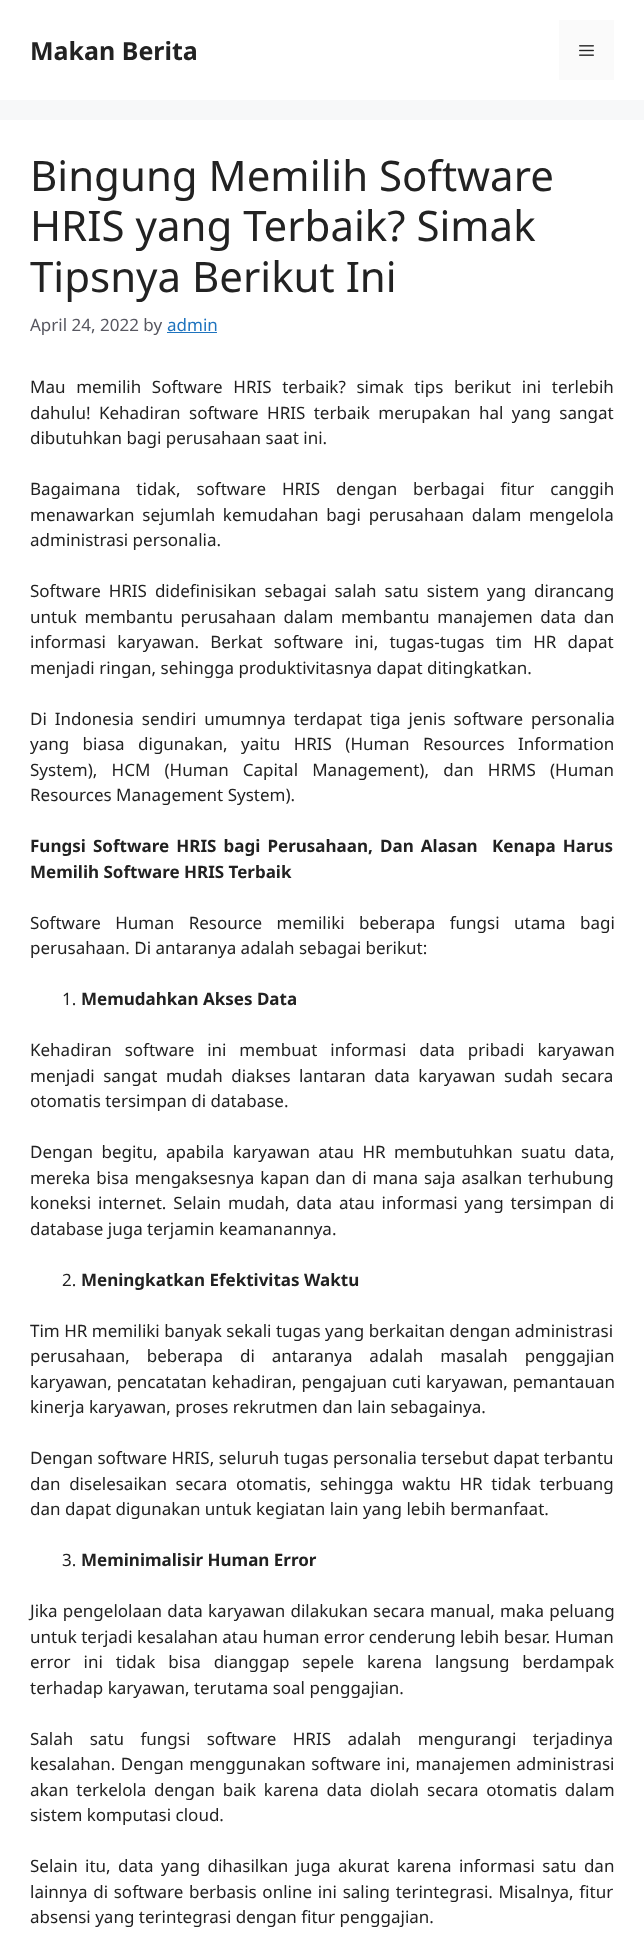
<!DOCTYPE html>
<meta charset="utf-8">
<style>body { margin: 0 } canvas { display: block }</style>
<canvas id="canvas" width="644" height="1935"></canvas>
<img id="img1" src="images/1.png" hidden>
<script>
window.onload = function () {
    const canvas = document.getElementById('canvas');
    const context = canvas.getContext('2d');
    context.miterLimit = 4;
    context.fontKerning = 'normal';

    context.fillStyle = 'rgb(247, 248, 249)';
    context.fillRect(0, 0, 644, 1935);
    context.fillStyle = 'rgb(255, 255, 255)';
    context.fillRect(0, 0, 644, 100);
    context.fillStyle = 'rgb(250, 250, 250)';
    context.fillRect(559, 20, 55, 60);
    context.drawImage(document.getElementById('img1'), 579, 45, 15, 11);
    context.fillStyle = 'rgb(255, 255, 255)';
    context.fillRect(0, 120, 644, 1815);
    context.fillStyle = 'rgb(30, 115, 190)';
    context.fillRect(167, 332, 50, 1);
    context.font = 'bold 25px Noto Sans';
    context.fillStyle = 'rgb(34, 34, 34)';
    context.fillText('Makan Berita', 30, 60);
    context.font = '42px Noto Sans';
    context.fillText('Bingung Memilih Software', 30, 191);
    context.fillText('HRIS yang Terbaik? Simak', 30, 241);
    context.fillText('Tipsnya Berikut Ini', 30, 292);
    context.font = '17px Noto Sans';
    context.fillStyle = 'rgb(87, 87, 96)';
    context.fillText('April 24, 2022 by', 30, 331);
    context.fillStyle = 'rgb(30, 115, 190)';
    context.fillText('admin', 167, 331);
    context.wordSpacing = '6.25px';
    context.fillStyle = 'rgb(34, 34, 34)';
    context.fillText('Mau memilih Software HRIS terbaik? simak tips berikut ini terlebih', 30, 393);
    context.wordSpacing = '4px';
    context.fillText('dahulu! Kehadiran software HRIS terbaik merupakan hal yang sangat', 30, 419);
    context.wordSpacing = '0px';
    context.fillText('dibutuhkan bagi perusahaan saat ini.', 30, 444);
    context.wordSpacing = '11.5px';
    context.fillText('Bagaimana tidak, software HRIS dengan berbagai fitur canggih', 30, 495);
    context.wordSpacing = '3.25px';
    context.fillText('menawarkan sejumlah kemudahan bagi perusahaan dalam mengelola', 30, 521);
    context.wordSpacing = '0px';
    context.fillText('administrasi personalia.', 30, 546);
    context.wordSpacing = '3.5px';
    context.fillText('Software HRIS didefinisikan sebagai salah satu sistem yang dirancang', 30, 597);
    context.wordSpacing = '3.25px';
    context.fillText('untuk membantu perusahaan dalam membantu manajemen data dan', 30, 623);
    context.wordSpacing = '6.75px';
    context.fillText('informasi karyawan. Berkat software ini, tugas-tugas tim HR dapat', 30, 648);
    context.wordSpacing = '0px';
    context.fillText('menjadi ringan, sehingga produktivitasnya dapat ditingkatkan.', 30, 674);
    context.wordSpacing = '3.5px';
    context.fillText('Di Indonesia sendiri umumnya terdapat tiga jenis software personalia', 30, 725);
    context.wordSpacing = '9px';
    context.fillText('yang biasa digunakan, yaitu HRIS (Human Resources Information', 30, 750);
    context.wordSpacing = '9.75px';
    context.fillText('System), HCM (Human Capital Management), dan HRMS (Human', 30, 776);
    context.wordSpacing = '0px';
    context.fillText('Resources Management System).', 30, 801);
    context.wordSpacing = '2.75px';
    context.font = 'bold 17px Noto Sans';
    context.fillText('Fungsi Software HRIS bagi Perusahaan, Dan Alasan  Kenapa Harus', 30, 852);
    context.wordSpacing = '0px';
    context.fillText('Memilih Software HRIS Terbaik', 30, 878);
    context.wordSpacing = '10px';
    context.font = '17px Noto Sans';
    context.fillText('Software Human Resource memiliki beberapa fungsi utama bagi', 30, 929);
    context.wordSpacing = '0px';
    context.fillText('perusahaan. Di antaranya adalah sebagai berikut:', 30, 954);
    context.fillText('1.', 62, 1005);
    context.font = 'bold 17px Noto Sans';
    context.fillText('Memudahkan Akses Data', 81, 1005);
    context.wordSpacing = '8.5px';
    context.font = '17px Noto Sans';
    context.fillText('Kehadiran software ini membuat informasi data pribadi karyawan', 30, 1056);
    context.wordSpacing = '4px';
    context.fillText('menjadi sangat mudah diakses lantaran data karyawan sudah secara', 30, 1082);
    context.wordSpacing = '0px';
    context.fillText('otomatis tersimpan di database.', 30, 1107);
    context.wordSpacing = '4px';
    context.fillText('Dengan begitu, apabila karyawan atau HR membutuhkan suatu data,', 30, 1158);
    context.wordSpacing = '1.5px';
    context.fillText('mereka bisa mengaksesnya kapan dan di mana saja asalkan terhubung', 30, 1184);
    context.wordSpacing = '2.5px';
    context.fillText('koneksi internet. Selain mudah, data atau informasi yang tersimpan di', 30, 1209);
    context.wordSpacing = '0px';
    context.fillText('database juga terjamin keamanannya.', 30, 1235);
    context.fillText('2.', 62, 1286);
    context.font = 'bold 17px Noto Sans';
    context.fillText('Meningkatkan Efektivitas Waktu', 81, 1286);
    context.font = '17px Noto Sans';
    context.fillText('Tim HR memiliki banyak sekali tugas yang berkaitan dengan administrasi', 30, 1337);
    context.wordSpacing = '12.5px';
    context.fillText('perusahaan, beberapa di antaranya adalah masalah penggajian', 30, 1362);
    context.wordSpacing = '0.5px';
    context.fillText('karyawan, pencatatan kehadiran, pengajuan cuti karyawan, pemantauan', 30, 1388);
    context.wordSpacing = '0px';
    context.fillText('kinerja karyawan, proses rekrutmen dan lain sebagainya.', 30, 1413);
    context.fillText('Dengan software HRIS, seluruh tugas personalia tersebut dapat terbantu', 30, 1464);
    context.wordSpacing = '4.25px';
    context.fillText('dan diselesaikan secara otomatis, sehingga waktu HR tidak terbuang', 30, 1490);
    context.wordSpacing = '0px';
    context.fillText('dan dapat digunakan untuk kegiatan lain yang lebih bermanfaat.', 30, 1515);
    context.fillText('3.', 62, 1566);
    context.font = 'bold 17px Noto Sans';
    context.fillText('Meminimalisir Human Error', 81, 1566);
    context.wordSpacing = '0.75px';
    context.font = '17px Noto Sans';
    context.fillText('Jika pengelolaan data karyawan dilakukan secara manual, maka peluang', 30, 1617);
    context.wordSpacing = '0px';
    context.fillText('untuk terjadi kesalahan atau human error cenderung lebih besar. Human', 30, 1643);
    context.wordSpacing = '8.5px';
    context.fillText('error ini tidak bisa dianggap sepele karena langsung berdampak', 30, 1668);
    context.wordSpacing = '0px';
    context.fillText('terhadap karyawan, terutama soal penggajian.', 30, 1694);
    context.wordSpacing = '12px';
    context.fillText('Salah satu fungsi software HRIS adalah mengurangi terjadinya', 30, 1745);
    context.wordSpacing = '1px';
    context.fillText('kesalahan. Dengan menggunakan software ini, manajemen administrasi', 30, 1770);
    context.wordSpacing = '3.25px';
    context.fillText('akan terkelola dengan baik karena data diolah secara otomatis dalam', 30, 1796);
    context.wordSpacing = '0px';
    context.fillText('sistem komputasi cloud.', 30, 1821);
    context.wordSpacing = '2.9px';
    context.fillText('Selain itu, data yang dihasilkan juga akurat karena informasi satu dan', 30, 1872);
    context.wordSpacing = '1.25px';
    context.fillText('lainnya di software berbasis online ini saling terintegrasi. Misalnya, fitur', 30, 1898);
    context.wordSpacing = '0px';
    context.fillText('absensi yang terintegrasi dengan fitur penggajian.', 30, 1923);
};
</script>
